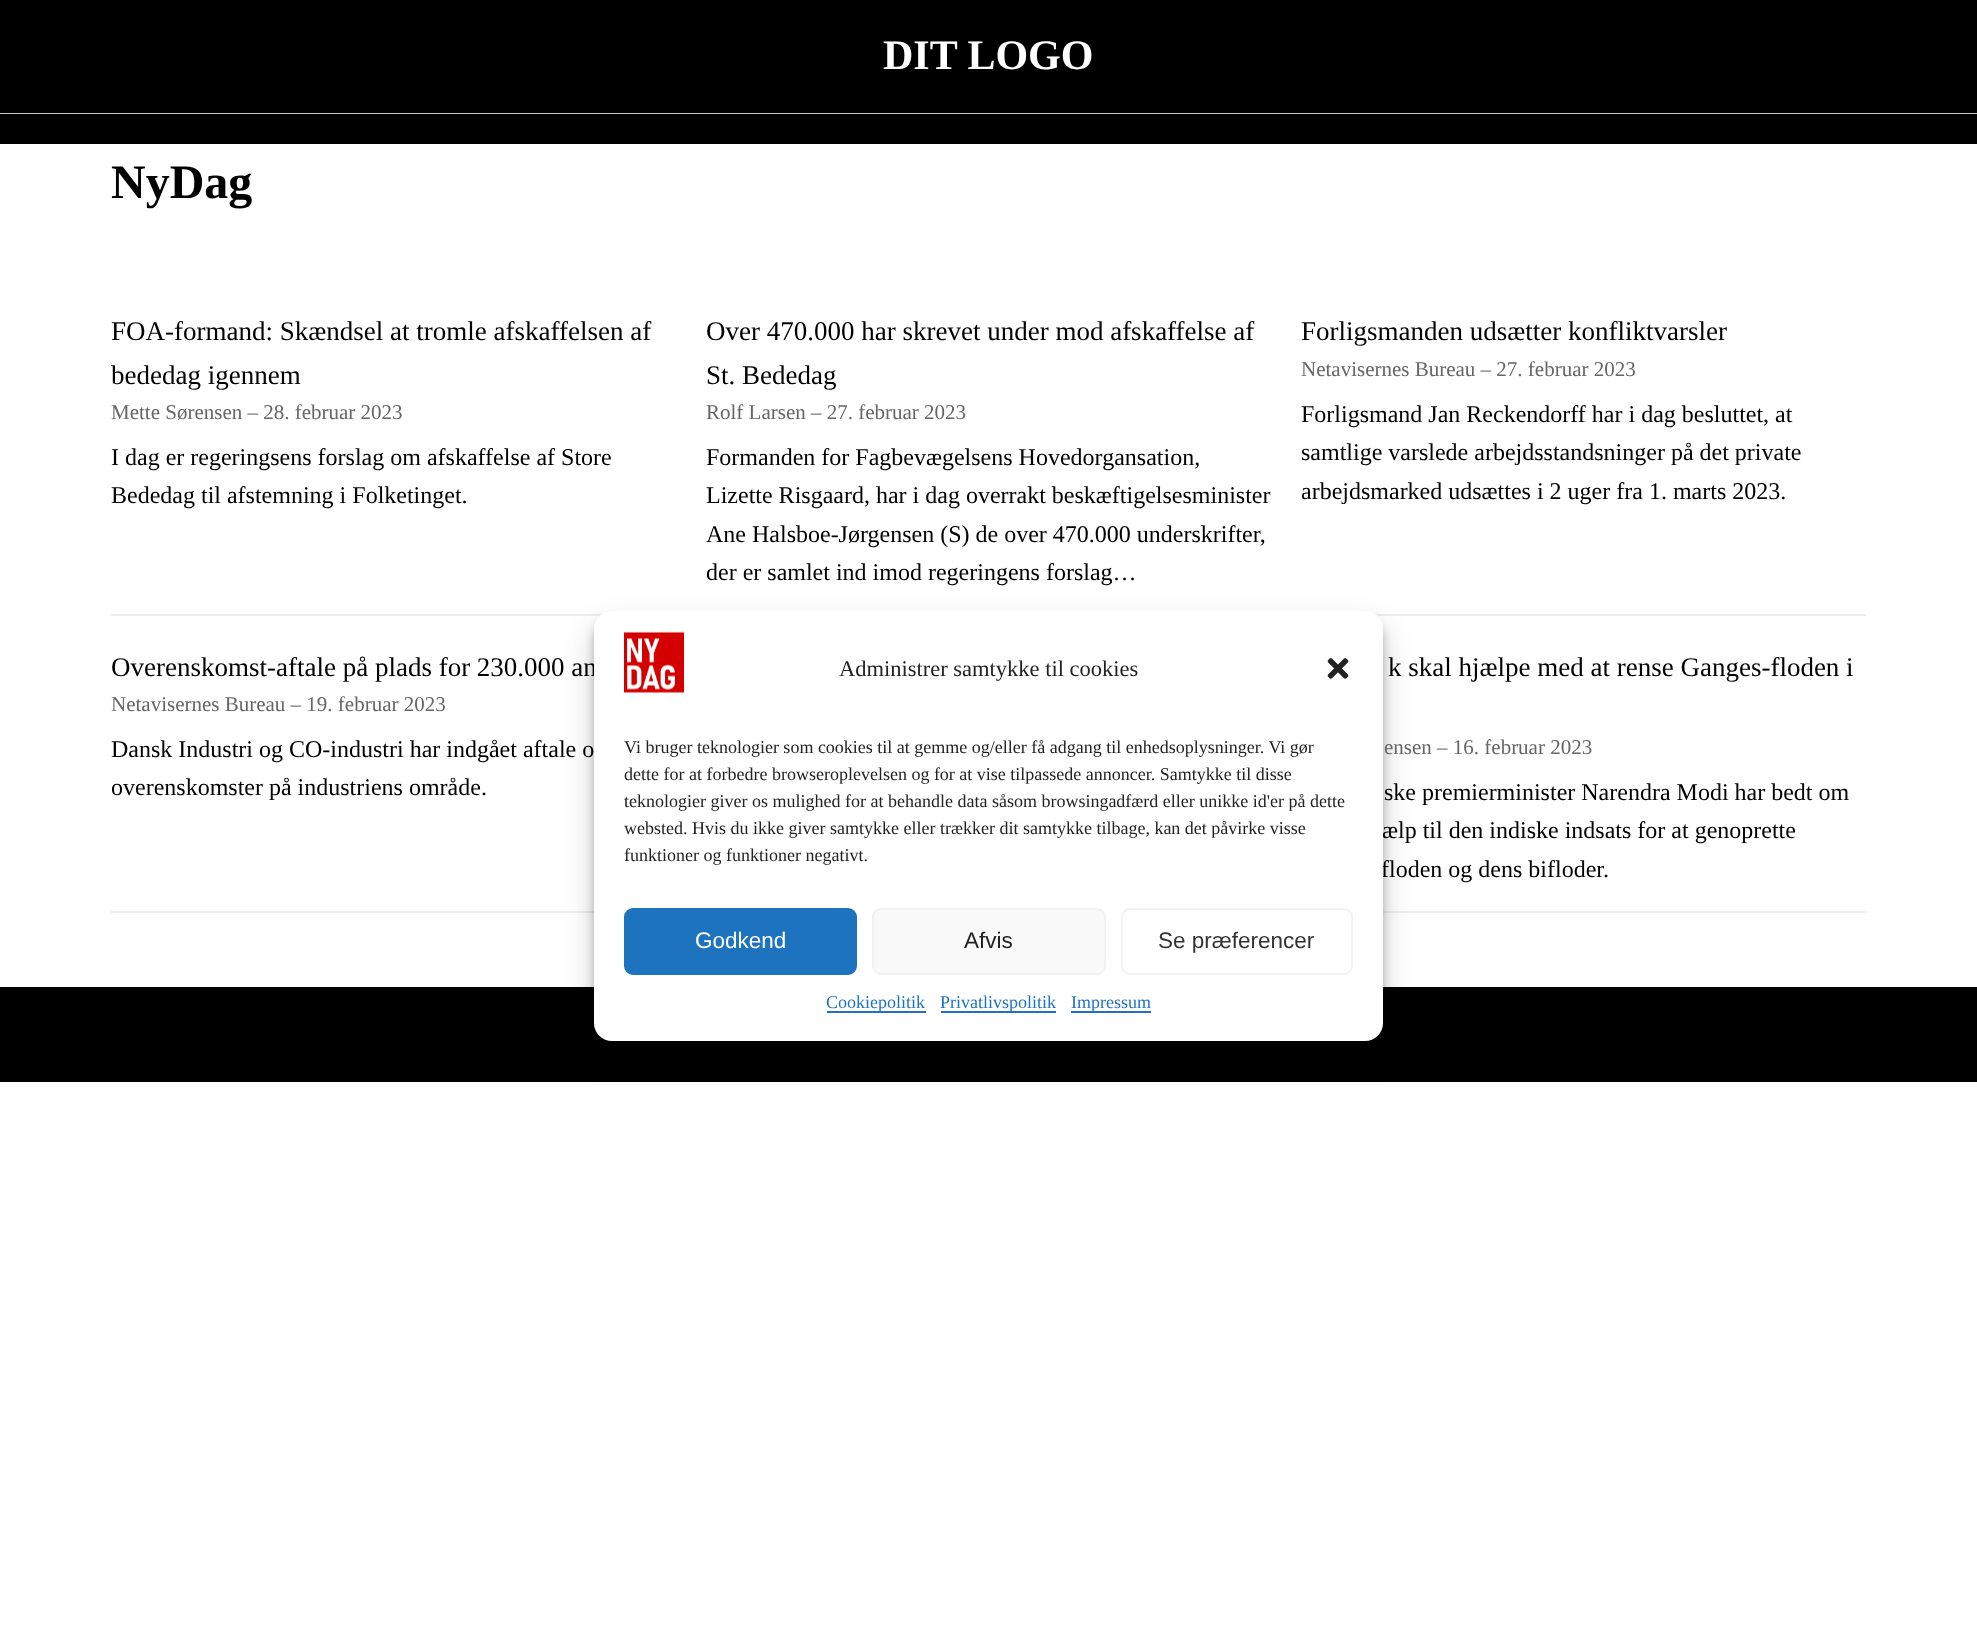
<!DOCTYPE html>
<meta charset="utf-8">
<style>body { margin: 0 } canvas { display: block }</style>
<canvas id="canvas" width="1977" height="1650"></canvas>
<img id="img1" src="images/1.png" hidden>
<img id="img2" src="images/2.png" hidden>
<script>
window.onload = function () {
    const canvas = document.getElementById('canvas');
    const context = canvas.getContext('2d');
    context.miterLimit = 4;
    context.fontKerning = 'normal';

    context.fillStyle = 'rgb(255, 255, 255)';
    context.fillRect(0, 0, 1977, 1650);
    context.fillStyle = 'rgb(0, 0, 0)';
    context.fillRect(0, 0, 1977, 113);
    context.fillStyle = 'rgb(204, 204, 204)';
    context.fillRect(0, 113, 1977, 1);
    context.fillStyle = 'rgb(0, 0, 0)';
    context.fillRect(0, 114, 1977, 30);
    context.fillStyle = 'rgb(238, 238, 238)';
    context.fillRect(111, 614, 491, 2);
    context.fillRect(1375, 614, 491, 2);
    context.fillRect(111, 911, 483, 2);
    context.fillRect(1383, 911, 483, 2);
    context.fillStyle = 'rgb(0, 0, 0)';
    context.fillRect(0, 987, 1977, 95);
    context.fillStyle = 'rgba(0, 0, 0, 0.23)';
    context.filter = 'blur(4.5px)';
    context.beginPath();
    context.roundRect(594, 620, 789, 430, 18);
    context.fill();
    context.filter = 'none';
    context.fillStyle = 'rgba(0, 0, 0, 0.19)';
    context.filter = 'blur(15px)';
    context.beginPath();
    context.roundRect(594, 626, 789, 430, 18);
    context.fill();
    context.filter = 'none';
    context.font = 'bold 42px Liberation Serif';
    context.fillStyle = 'rgb(255, 255, 255)';
    context.fillText('DIT LOGO', 883, 69);
    context.font = 'bold 48px Liberation Serif';
    context.fillStyle = 'rgb(0, 0, 0)';
    context.fillText('NyDag', 111, 198);
    context.font = '27px Liberation Serif';
    context.fillText('FOA-formand: Skændsel at tromle afskaffelsen af', 111, 340);
    context.fillText('bededag igennem', 111, 384);
    context.font = '21px Liberation Serif';
    context.fillStyle = 'rgb(102, 102, 102)';
    context.fillText('Mette Sørensen – 28. februar 2023', 111, 419);
    context.font = '24px Liberation Serif';
    context.fillStyle = 'rgb(0, 0, 0)';
    context.fillText('I dag er regeringsens forslag om afskaffelse af Store', 111, 465);
    context.fillText('Bededag til afstemning i Folketinget.', 111, 503);
    context.font = '27px Liberation Serif';
    context.fillText('Over 470.000 har skrevet under mod afskaffelse af', 706, 340);
    context.fillText('St. Bededag', 706, 384);
    context.font = '21px Liberation Serif';
    context.fillStyle = 'rgb(102, 102, 102)';
    context.fillText('Rolf Larsen – 27. februar 2023', 706, 419);
    context.font = '24px Liberation Serif';
    context.fillStyle = 'rgb(0, 0, 0)';
    context.fillText('Formanden for Fagbevægelsens Hovedorgansation,', 706, 465);
    context.fillText('Lizette Risgaard, har i dag overrakt beskæftigelsesminister', 706, 503);
    context.fillText('Ane Halsboe-Jørgensen (S) de over 470.000 underskrifter,', 706, 542);
    context.fillText('der er samlet ind imod regeringens forslag…', 706, 580);
    context.font = '27px Liberation Serif';
    context.fillText('Forligsmanden udsætter konfliktvarsler', 1301, 340);
    context.font = '21px Liberation Serif';
    context.fillStyle = 'rgb(102, 102, 102)';
    context.fillText('Netavisernes Bureau – 27. februar 2023', 1301, 376);
    context.font = '24px Liberation Serif';
    context.fillStyle = 'rgb(0, 0, 0)';
    context.fillText('Forligsmand Jan Reckendorff har i dag besluttet, at', 1301, 422);
    context.fillText('samtlige varslede arbejdsstandsninger på det private', 1301, 460);
    context.fillText('arbejdsmarked udsættes i 2 uger fra 1. marts 2023.', 1301, 499);
    context.font = '27px Liberation Serif';
    context.fillText('Overenskomst-aftale på plads for 230.000 an', 111, 676);
    context.font = '21px Liberation Serif';
    context.fillStyle = 'rgb(102, 102, 102)';
    context.fillText('Netavisernes Bureau – 19. februar 2023', 111, 711);
    context.font = '24px Liberation Serif';
    context.fillStyle = 'rgb(0, 0, 0)';
    context.fillText('Dansk Industri og CO-industri har indgået aftale o', 111, 757);
    context.fillText('overenskomster på industriens område.', 111, 795);
    context.font = '27px Liberation Serif';
    context.fillText('k skal hjælpe med at rense Ganges-floden i', 1388, 676);
    context.font = '21px Liberation Serif';
    context.fillStyle = 'rgb(102, 102, 102)';
    context.fillText('ensen – 16. februar 2023', 1384, 754);
    context.font = '24px Liberation Serif';
    context.fillStyle = 'rgb(0, 0, 0)';
    context.fillText('ske premierminister Narendra Modi har bedt om', 1384, 800);
    context.fillText('ælp til den indiske indsats for at genoprette', 1382, 838);
    context.fillText('floden og dens bifloder.', 1381, 877);
    context.fillStyle = 'rgb(255, 255, 255)';
    context.beginPath();
    context.roundRect(594, 611, 789, 430, 18);
    context.fill();
    context.drawImage(document.getElementById('img1'), 624, 631, 60, 62);
    context.font = '22.5px Liberation Serif';
    context.fillStyle = 'rgb(34, 34, 34)';
    context.fillText('Administrer samtykke til cookies', 839, 676);
    context.drawImage(document.getElementById('img2'), 1327, 658, 22, 21);
    context.font = '18px Liberation Serif';
    context.fillText('Vi bruger teknologier som cookies til at gemme og/eller få adgang til enhedsoplysninger. Vi gør', 624, 753);
    context.fillText('dette for at forbedre browseroplevelsen og for at vise tilpassede annoncer. Samtykke til disse', 624, 780);
    context.fillText('teknologier giver os mulighed for at behandle data såsom browsingadfærd eller unikke id\'er på dette', 624, 807);
    context.fillText('websted. Hvis du ikke giver samtykke eller trækker dit samtykke tilbage, kan det påvirke visse', 624, 834);
    context.fillText('funktioner og funktioner negativt.', 624, 861);
    context.fillStyle = 'rgb(30, 115, 190)';
    context.beginPath();
    context.roundRect(625, 909, 231, 65, 8);
    context.fill();
    context.strokeStyle = 'rgb(30, 115, 190)';
    context.lineWidth = 2;
    context.stroke();
    context.font = '22.5px Liberation Sans';
    context.fillStyle = 'rgb(255, 255, 255)';
    context.fillText('Godkend', 695, 948);
    context.fillStyle = 'rgb(249, 249, 249)';
    context.beginPath();
    context.roundRect(873, 909, 232, 65, 8);
    context.fill();
    context.strokeStyle = 'rgb(242, 242, 242)';
    context.stroke();
    context.fillStyle = 'rgb(34, 34, 34)';
    context.fillText('Afvis', 964, 948);
    context.beginPath();
    context.roundRect(1122, 909, 230, 65, 8);
    context.stroke();
    context.fillStyle = 'rgb(51, 51, 51)';
    context.fillText('Se præferencer', 1158, 948);
    context.fillStyle = 'rgb(30, 115, 190)';
    context.fillRect(827, 1011, 99, 2);
    context.font = '18px Liberation Serif';
    context.fillText('Cookiepolitik', 826, 1008);
    context.fillRect(941, 1011, 115, 2);
    context.fillText('Privatlivspolitik', 940, 1008);
    context.fillRect(1071, 1011, 80, 2);
    context.fillText('Impressum', 1071, 1008);
};
</script>
